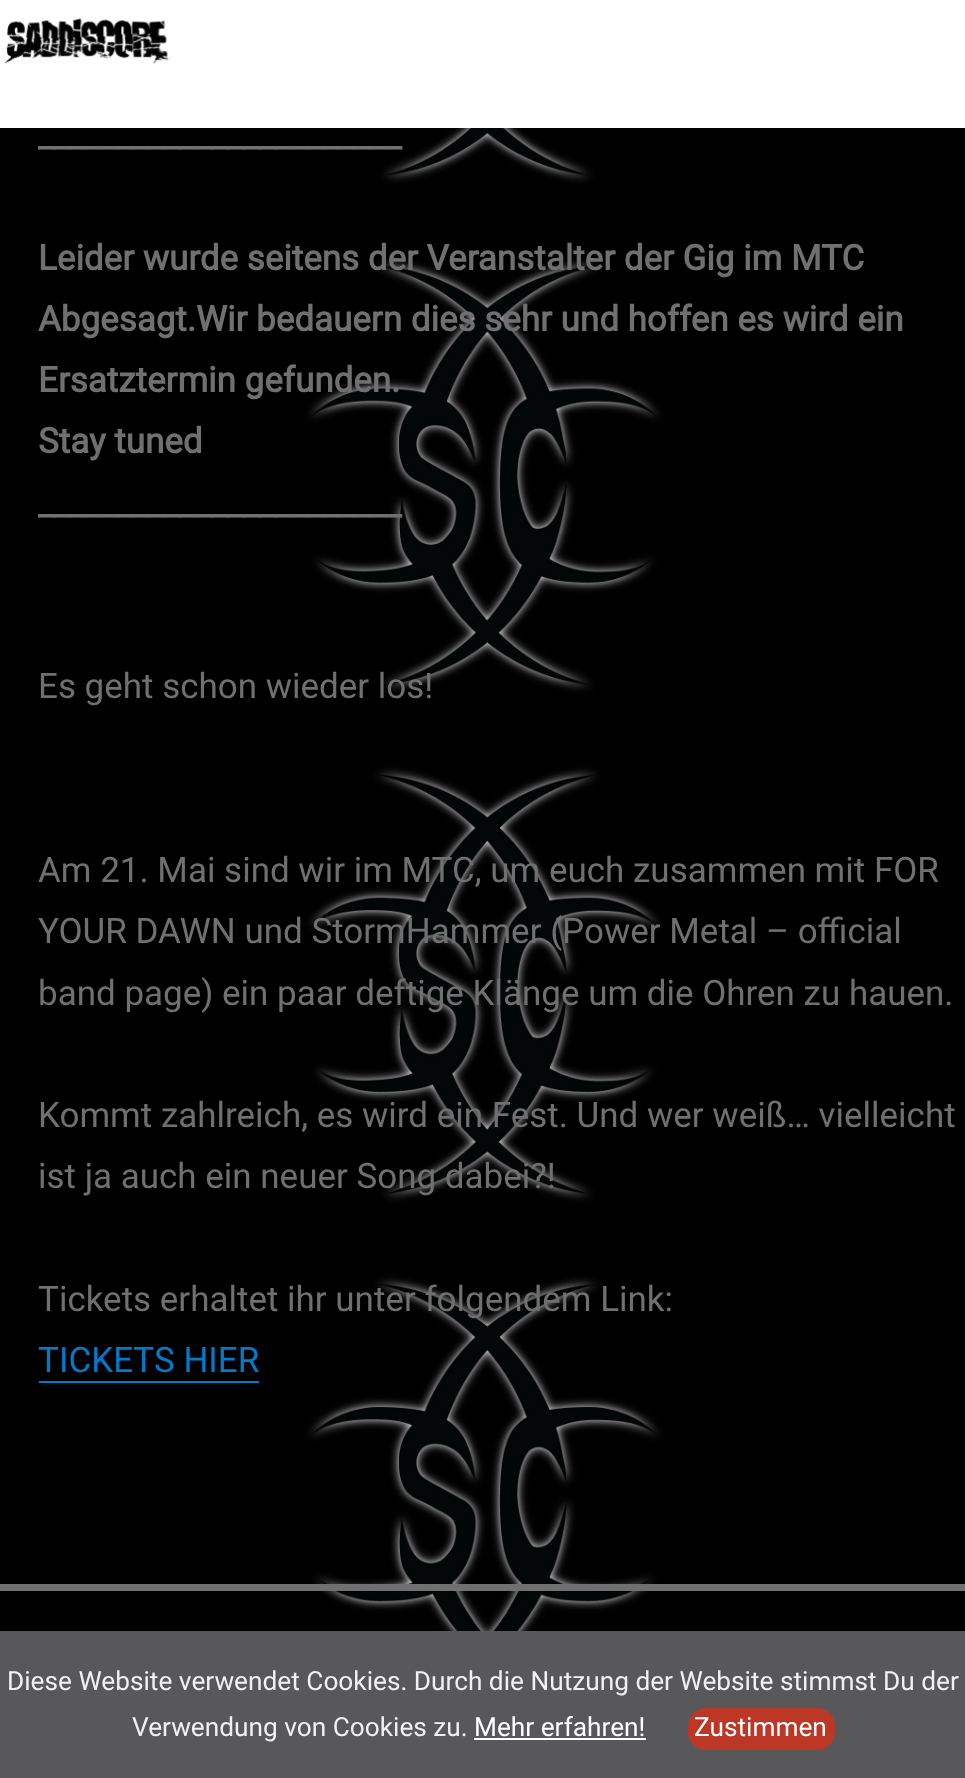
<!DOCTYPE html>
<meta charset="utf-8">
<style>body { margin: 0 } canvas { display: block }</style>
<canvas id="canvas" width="965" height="1778"></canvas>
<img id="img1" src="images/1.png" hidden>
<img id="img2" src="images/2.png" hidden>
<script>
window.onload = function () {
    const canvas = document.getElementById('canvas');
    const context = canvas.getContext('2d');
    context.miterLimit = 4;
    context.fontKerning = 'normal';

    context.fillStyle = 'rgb(255, 255, 255)';
    context.fillRect(0, 0, 965, 1778);
    context.drawImage(document.getElementById('img1'), 0, 128, 965, 1503);
    context.drawImage(document.getElementById('img2'), 5, 18, 164, 46);
    context.fillStyle = 'rgb(0, 122, 204)';
    context.fillRect(39, 1381, 220, 2);
    context.fillStyle = 'rgb(112, 112, 112)';
    context.fillRect(0, 1584, 965, 7);
    context.fillStyle = 'rgb(88, 88, 90)';
    context.fillRect(0, 1631, 965, 147);
    context.fillStyle = 'rgb(255, 255, 255)';
    context.fillRect(474, 1738, 172, 2);
    context.fillStyle = 'rgb(188, 55, 38)';
    context.beginPath();
    context.roundRect(688, 1708, 147, 42, 18);
    context.fill();
    context.font = 'bold 35px Roboto';
    context.fillStyle = 'rgb(112, 112, 112)';
    context.fillText('_______________________', 38, 147);
    context.fillText('Leider wurde seitens der Veranstalter der Gig im MTC', 38, 270);
    context.fillText('Abgesagt.Wir bedauern dies sehr und hoffen es wird ein', 38, 331);
    context.fillText('Ersatztermin gefunden.', 38, 392);
    context.fillText('Stay tuned', 38, 453);
    context.fillText('_______________________', 38, 515);
    context.font = '35px Roboto';
    context.fillText('Es geht schon wieder los!', 38, 698);
    context.fillText('Am 21. Mai sind wir im MTC, um euch zusammen mit FOR', 38, 882);
    context.fillText('YOUR DAWN und StormHammer (Power Metal – official', 38, 943);
    context.fillText('band page) ein paar deftige Klänge um die Ohren zu hauen.', 38, 1005);
    context.fillText('Kommt zahlreich, es wird ein Fest. Und wer weiß… vielleicht', 38, 1127);
    context.fillText('ist ja auch ein neuer Song dabei?!', 38, 1188);
    context.fillText('Tickets erhaltet ihr unter folgendem Link:', 38, 1311);
    context.fillStyle = 'rgb(0, 122, 204)';
    context.fillText('TICKETS HIER', 38, 1372);
    context.font = '26.25px Roboto';
    context.fillStyle = 'rgb(241, 241, 241)';
    context.fillText('Diese Website verwendet Cookies. Durch die Nutzung der Website stimmst Du der', 7, 1690);
    context.fillText('Verwendung von Cookies zu.', 132, 1736);
    context.fillStyle = 'rgb(255, 255, 255)';
    context.fillText('Mehr erfahren!', 474, 1736);
    context.fillText('Zustimmen', 694, 1736);
};
</script>
